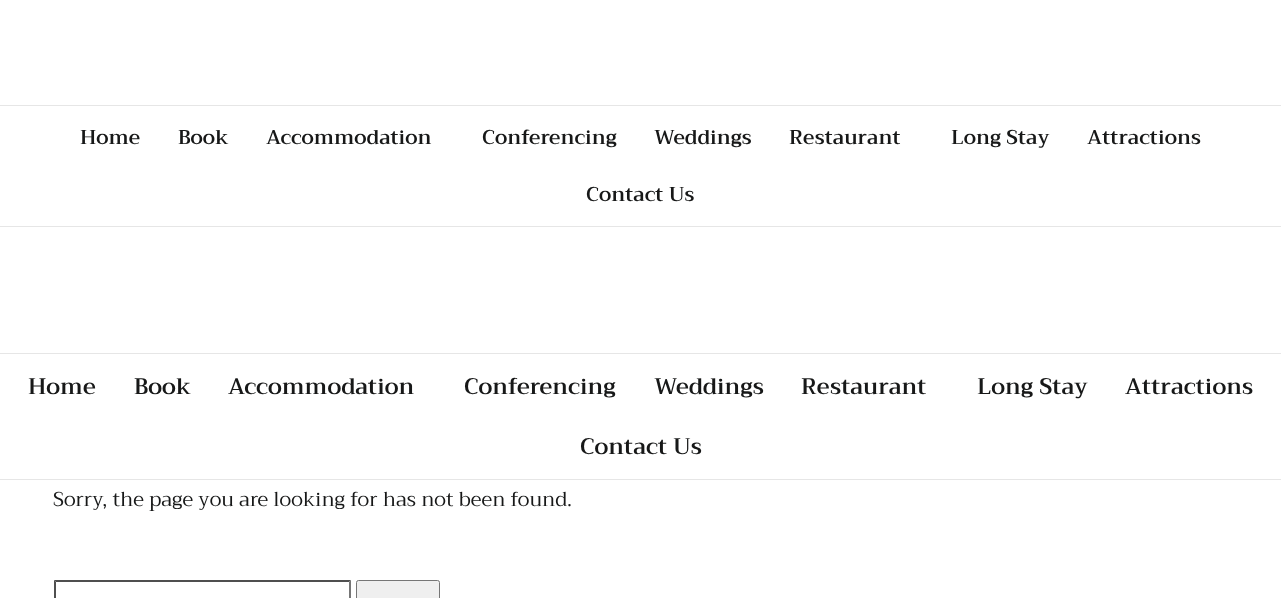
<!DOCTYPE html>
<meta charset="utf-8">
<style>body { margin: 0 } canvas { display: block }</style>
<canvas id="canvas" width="1281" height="598"></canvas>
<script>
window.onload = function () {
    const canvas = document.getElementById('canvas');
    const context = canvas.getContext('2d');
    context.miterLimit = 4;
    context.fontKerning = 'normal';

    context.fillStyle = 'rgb(255, 255, 255)';
    context.fillRect(0, 0, 1281, 598);
    context.fillStyle = 'rgb(230, 230, 230)';
    context.fillRect(0, 105, 1281, 1);
    context.fillRect(0, 226, 1281, 1);
    context.fillRect(0, 353, 1281, 1);
    context.fillRect(0, 479, 1281, 1);
    context.fillStyle = 'rgb(79, 79, 79)';
    context.beginPath();
    context.moveTo(54, 580);
    context.lineTo(351, 580);
    context.lineTo(349, 582);
    context.lineTo(56, 582);
    context.closePath();
    context.fill();
    context.fillStyle = 'rgb(118, 118, 118)';
    context.beginPath();
    context.moveTo(351, 580);
    context.lineTo(351, 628);
    context.lineTo(349, 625);
    context.lineTo(349, 582);
    context.closePath();
    context.fill();
    context.fillStyle = 'rgb(79, 79, 79)';
    context.beginPath();
    context.moveTo(54, 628);
    context.lineTo(54, 580);
    context.lineTo(56, 582);
    context.lineTo(56, 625);
    context.closePath();
    context.fill();
    context.fillStyle = 'rgb(239, 239, 239)';
    context.beginPath();
    context.roundRect(356.5, 580.5, 83, 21, 2);
    context.fill();
    context.strokeStyle = 'rgb(118, 118, 118)';
    context.stroke();
    context.font = '600 20px Trirong';
    context.fillStyle = 'rgb(23, 24, 24)';
    context.fillText('Home', 80, 144);
    context.fillText('Book', 178, 144);
    context.fillText('Accommodation', 266, 144);
    context.fillText('Conferencing', 482, 144);
    context.fillText('Weddings', 654, 144);
    context.fillText('Restaurant', 789, 144);
    context.fillText('Long Stay', 951, 144);
    context.fillText('Attractions', 1087, 144);
    context.fillText('Contact Us', 586, 201);
    context.font = '600 22.5px Trirong';
    context.fillText('Home', 28, 394);
    context.fillText('Book', 134, 394);
    context.fillText('Accommodation', 228, 394);
    context.fillText('Conferencing', 464, 394);
    context.fillText('Weddings', 654, 394);
    context.fillText('Restaurant', 801, 394);
    context.fillText('Long Stay', 977, 394);
    context.fillText('Attractions', 1125, 394);
    context.fillText('Contact Us', 580, 454);
    context.font = '20px Trirong';
    context.fillText('Sorry, the page you are looking for has not been found.', 53, 506);
};
</script>
